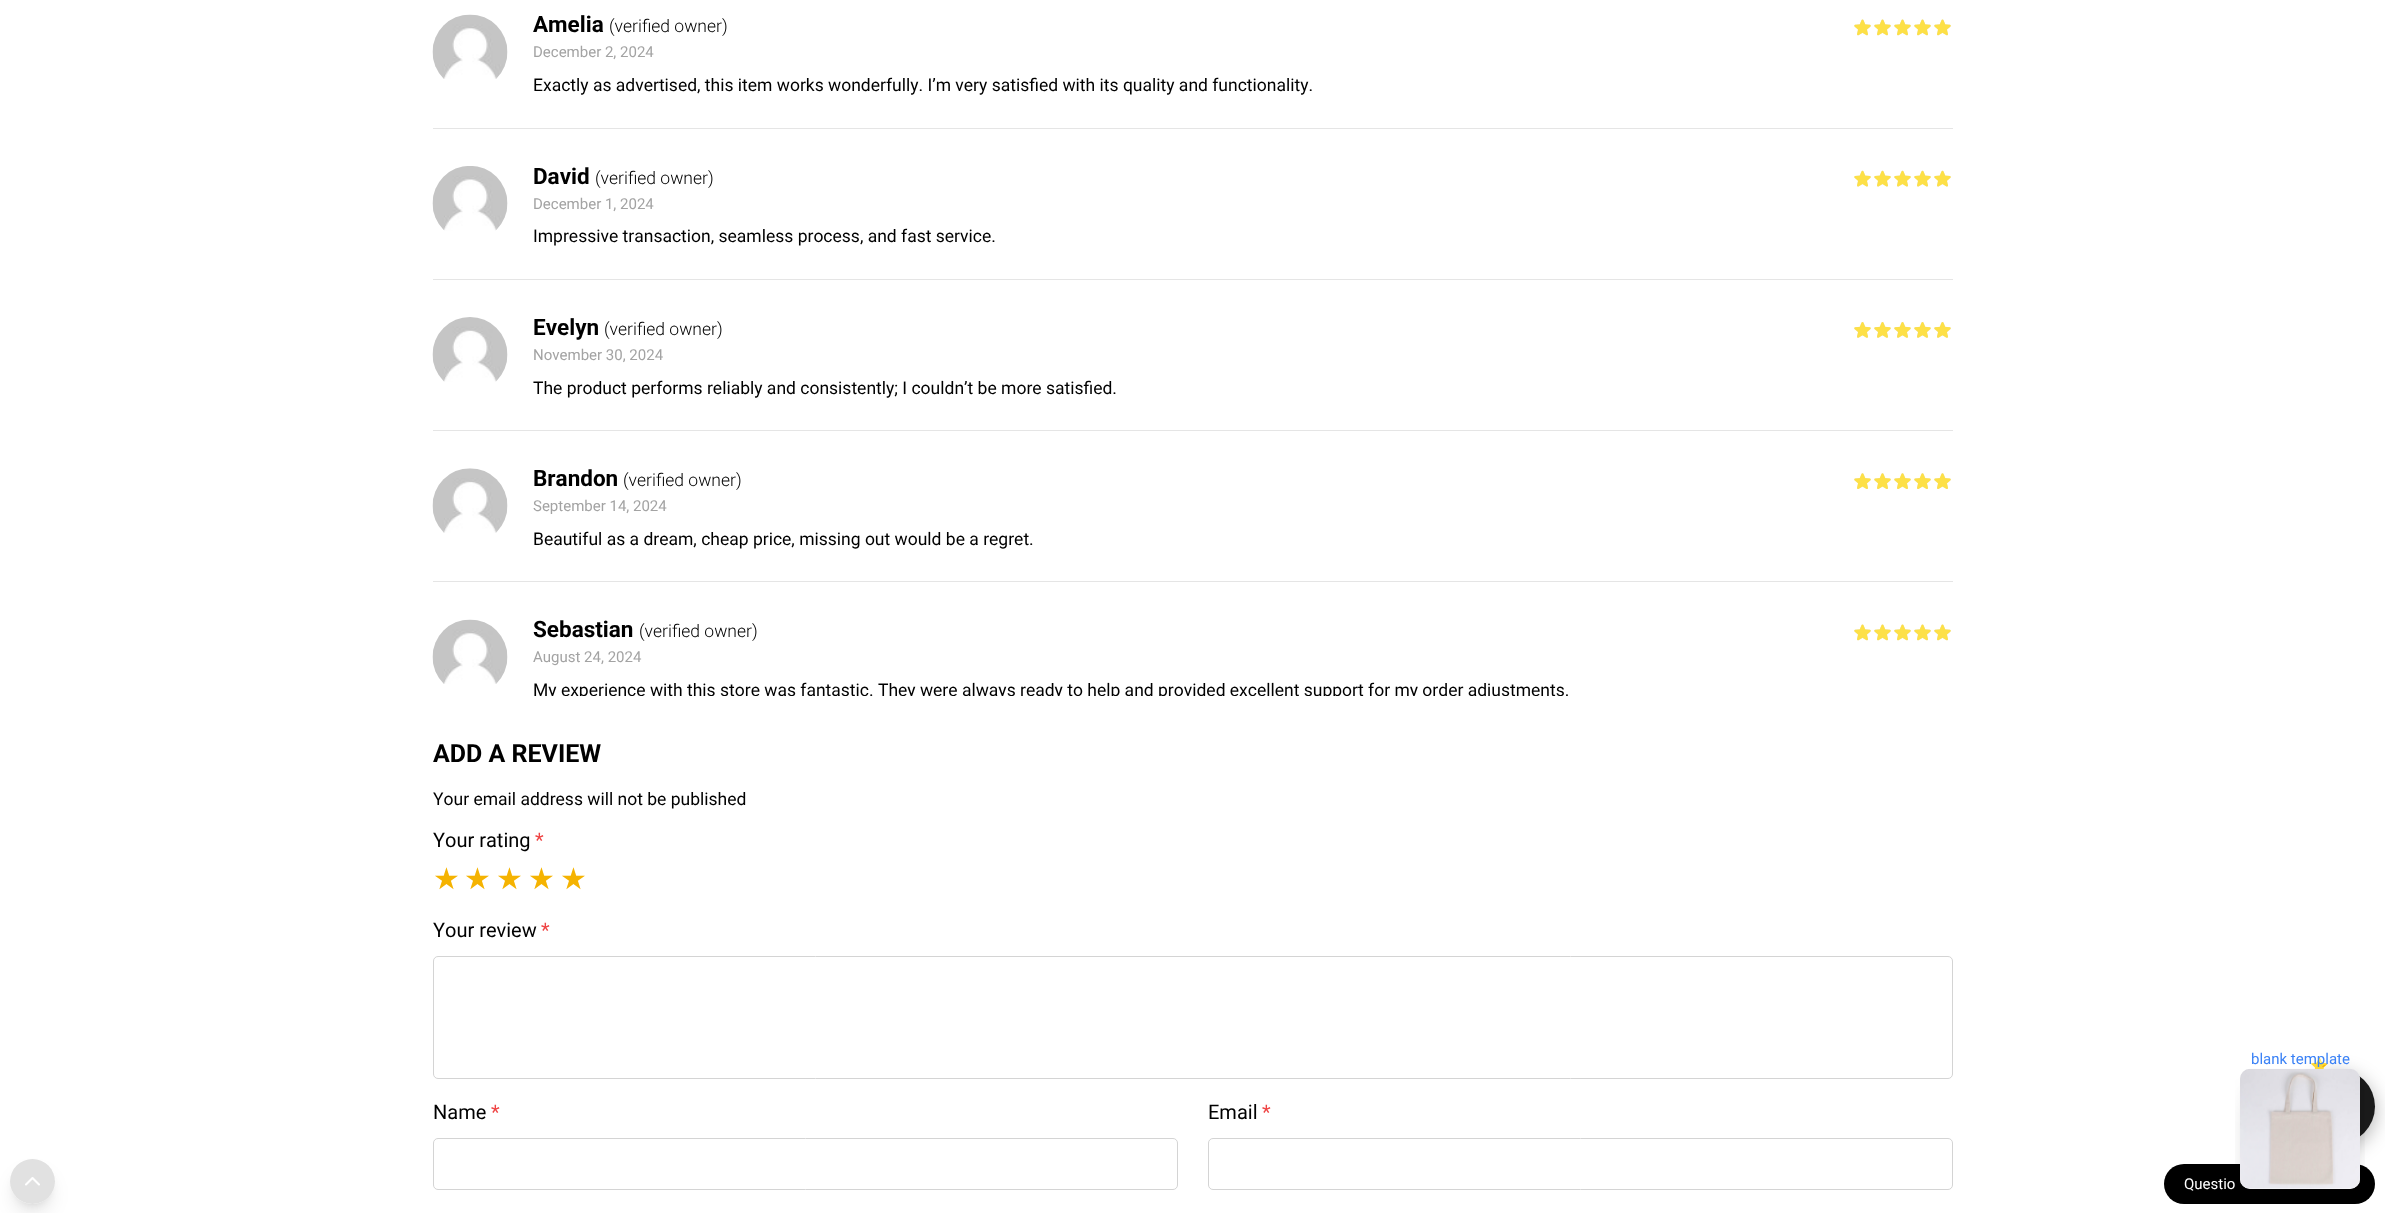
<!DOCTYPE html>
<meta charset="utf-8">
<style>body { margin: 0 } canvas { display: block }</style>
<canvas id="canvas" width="2385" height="1213"></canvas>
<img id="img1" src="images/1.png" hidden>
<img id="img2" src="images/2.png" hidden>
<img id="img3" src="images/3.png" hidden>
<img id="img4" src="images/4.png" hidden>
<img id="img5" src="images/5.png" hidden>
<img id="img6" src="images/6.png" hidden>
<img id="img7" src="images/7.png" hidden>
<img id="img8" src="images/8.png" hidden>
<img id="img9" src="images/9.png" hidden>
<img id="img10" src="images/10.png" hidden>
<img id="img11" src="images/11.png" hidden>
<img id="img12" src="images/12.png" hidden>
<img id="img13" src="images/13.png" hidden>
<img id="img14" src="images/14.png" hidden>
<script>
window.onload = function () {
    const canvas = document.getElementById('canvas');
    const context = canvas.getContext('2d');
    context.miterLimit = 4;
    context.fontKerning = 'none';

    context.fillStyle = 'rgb(255, 255, 255)';
    context.fillRect(0, 0, 2385, 1213);
    context.fillStyle = 'rgb(229, 229, 229)';
    context.fillRect(433, 128, 1520, 1);
    context.drawImage(document.getElementById('img1'), 432, 14, 76, 65);
    context.drawImage(document.getElementById('img2'), 1854, 19, 17, 17);
    context.drawImage(document.getElementById('img2'), 1874, 19, 17, 17);
    context.drawImage(document.getElementById('img2'), 1894, 19, 17, 17);
    context.drawImage(document.getElementById('img2'), 1914, 19, 17, 17);
    context.drawImage(document.getElementById('img2'), 1934, 19, 17, 17);
    context.drawImage(document.getElementById('img3'), 1854, 19, 17, 17);
    context.drawImage(document.getElementById('img3'), 1874, 19, 17, 17);
    context.drawImage(document.getElementById('img3'), 1894, 19, 17, 17);
    context.drawImage(document.getElementById('img3'), 1914, 19, 17, 17);
    context.drawImage(document.getElementById('img3'), 1934, 19, 17, 17);
    context.fillRect(433, 279, 1520, 1);
    context.drawImage(document.getElementById('img4'), 432, 166, 76, 65);
    context.drawImage(document.getElementById('img5'), 1854, 170, 17, 17);
    context.drawImage(document.getElementById('img5'), 1874, 170, 17, 17);
    context.drawImage(document.getElementById('img5'), 1894, 170, 17, 17);
    context.drawImage(document.getElementById('img5'), 1914, 170, 17, 17);
    context.drawImage(document.getElementById('img5'), 1934, 170, 17, 17);
    context.drawImage(document.getElementById('img6'), 1854, 170, 17, 17);
    context.drawImage(document.getElementById('img6'), 1874, 170, 17, 17);
    context.drawImage(document.getElementById('img6'), 1894, 170, 17, 17);
    context.drawImage(document.getElementById('img6'), 1914, 170, 17, 17);
    context.drawImage(document.getElementById('img6'), 1934, 170, 17, 17);
    context.fillRect(433, 430, 1520, 1);
    context.drawImage(document.getElementById('img7'), 432, 317, 76, 65);
    context.drawImage(document.getElementById('img8'), 1854, 322, 17, 16);
    context.drawImage(document.getElementById('img8'), 1874, 322, 17, 16);
    context.drawImage(document.getElementById('img8'), 1894, 322, 17, 16);
    context.drawImage(document.getElementById('img8'), 1914, 322, 17, 16);
    context.drawImage(document.getElementById('img8'), 1934, 322, 17, 16);
    context.drawImage(document.getElementById('img9'), 1854, 322, 17, 16);
    context.drawImage(document.getElementById('img9'), 1874, 322, 17, 16);
    context.drawImage(document.getElementById('img9'), 1894, 322, 17, 16);
    context.drawImage(document.getElementById('img9'), 1914, 322, 17, 16);
    context.drawImage(document.getElementById('img9'), 1934, 322, 17, 16);
    context.fillRect(433, 581, 1520, 1);
    context.drawImage(document.getElementById('img10'), 432, 468, 76, 65);
    context.drawImage(document.getElementById('img11'), 1854, 473, 17, 16);
    context.drawImage(document.getElementById('img11'), 1874, 473, 17, 16);
    context.drawImage(document.getElementById('img11'), 1894, 473, 17, 16);
    context.drawImage(document.getElementById('img11'), 1914, 473, 17, 16);
    context.drawImage(document.getElementById('img11'), 1934, 473, 17, 16);
    context.drawImage(document.getElementById('img12'), 1854, 473, 17, 16);
    context.drawImage(document.getElementById('img12'), 1874, 473, 17, 16);
    context.drawImage(document.getElementById('img12'), 1894, 473, 17, 16);
    context.drawImage(document.getElementById('img12'), 1914, 473, 17, 16);
    context.drawImage(document.getElementById('img12'), 1934, 473, 17, 16);
    context.drawImage(document.getElementById('img13'), 432, 619, 76, 65);
    context.drawImage(document.getElementById('img2'), 1854, 624, 17, 17);
    context.drawImage(document.getElementById('img2'), 1874, 624, 17, 17);
    context.drawImage(document.getElementById('img2'), 1894, 624, 17, 17);
    context.drawImage(document.getElementById('img2'), 1914, 624, 17, 17);
    context.drawImage(document.getElementById('img2'), 1934, 624, 17, 17);
    context.drawImage(document.getElementById('img3'), 1854, 624, 17, 17);
    context.drawImage(document.getElementById('img3'), 1874, 624, 17, 17);
    context.drawImage(document.getElementById('img3'), 1894, 624, 17, 17);
    context.drawImage(document.getElementById('img3'), 1914, 624, 17, 17);
    context.drawImage(document.getElementById('img3'), 1934, 624, 17, 17);
    context.beginPath();
    context.roundRect(433.5, 956.5, 1519, 122, 4.5);
    context.strokeStyle = 'rgb(212, 212, 212)';
    context.stroke();
    context.beginPath();
    context.roundRect(433.5, 1138.5, 744, 51, 4.5);
    context.stroke();
    context.beginPath();
    context.roundRect(1208.5, 1138.5, 744, 51, 4.5);
    context.stroke();
    context.fillStyle = 'rgb(0, 0, 0)';
    context.beginPath();
    context.roundRect(2164, 1164, 211, 40, 20);
    context.fill();
    context.fillStyle = 'rgba(0, 0, 0, 0.3)';
    context.filter = 'blur(9.5px)';
    context.beginPath();
    context.roundRect(2300, 1074, 75, 75, 37.5);
    context.fill();
    context.filter = 'none';
    context.fillStyle = 'rgb(26, 26, 26)';
    context.beginPath();
    context.arc(2337.5, 1106.5, 37.5, 0, 2 * Math.PI);
    context.fill();
    context.save();
    context.beginPath();
    context.rect(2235, 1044, 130, 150);
    context.clip();
    context.fillStyle = 'rgba(0, 0, 0, 0.1)';
    context.filter = 'blur(6px)';
    context.beginPath();
    context.roundRect(2248, 1086, 105, 105, 2.5);
    context.fill();
    context.filter = 'none';
    context.filter = 'blur(15.5px)';
    context.beginPath();
    context.roundRect(2246, 1100, 108, 108, 4);
    context.fill();
    context.filter = 'none';
    context.restore();
    context.save();
    context.beginPath();
    context.moveTo(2, 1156);
    context.lineTo(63, 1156);
    context.lineTo(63, 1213);
    context.lineTo(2, 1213);
    context.closePath();
    context.moveTo(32.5, 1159);
    context.bezierCurveTo(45, 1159, 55, 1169, 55, 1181.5);
    context.bezierCurveTo(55, 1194, 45, 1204, 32.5, 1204);
    context.bezierCurveTo(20, 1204, 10, 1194, 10, 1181.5);
    context.bezierCurveTo(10, 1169, 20, 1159, 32.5, 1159);
    context.closePath();
    context.clip('evenodd');
    context.fillStyle = 'rgba(0, 0, 0, 0.1)';
    context.filter = 'blur(4px)';
    context.beginPath();
    context.roundRect(15, 1169, 35, 35, 17.5);
    context.fill();
    context.filter = 'none';
    context.restore();
    context.save();
    context.beginPath();
    context.moveTo(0, 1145);
    context.lineTo(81, 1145);
    context.lineTo(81, 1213);
    context.lineTo(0, 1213);
    context.closePath();
    context.moveTo(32.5, 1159);
    context.bezierCurveTo(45, 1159, 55, 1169, 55, 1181.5);
    context.bezierCurveTo(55, 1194, 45, 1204, 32.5, 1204);
    context.bezierCurveTo(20, 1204, 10, 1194, 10, 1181.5);
    context.bezierCurveTo(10, 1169, 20, 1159, 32.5, 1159);
    context.closePath();
    context.clip('evenodd');
    context.fillStyle = 'rgba(0, 0, 0, 0.1)';
    context.filter = 'blur(9.5px)';
    context.beginPath();
    context.roundRect(14, 1175, 37, 38, 18.5);
    context.fill();
    context.filter = 'none';
    context.restore();
    context.fillStyle = 'rgba(212, 212, 212, 0.7)';
    context.beginPath();
    context.arc(32.5, 1181.5, 22.5, 0, 2 * Math.PI);
    context.fill();
    context.beginPath();
    context.moveTo(39, 1184.5);
    context.lineTo(32.5, 1178);
    context.lineTo(26, 1184.5);
    context.strokeStyle = 'rgb(255, 255, 255)';
    context.lineWidth = 2.1;
    context.lineCap = 'round';
    context.lineJoin = 'round';
    context.stroke();
    context.font = 'bold 22.5px Roboto';
    context.fillStyle = 'rgb(0, 0, 0)';
    context.fillText('Amelia', 533, 32);
    context.font = '300 17.5px Roboto';
    context.fillText('(verified owner)', 609, 32);
    context.font = '15px Roboto';
    context.fillStyle = 'rgb(163, 163, 163)';
    context.fillText('December 2, 2024', 533, 57);
    context.font = '17.5px Roboto';
    context.fillStyle = 'rgb(0, 0, 0)';
    context.fillText('Exactly as advertised, this item works wonderfully. I’m very satisfied with its quality and functionality.', 533, 91);
    context.font = 'bold 22.5px Roboto';
    context.fillText('David', 533, 184);
    context.font = '300 17.5px Roboto';
    context.fillText('(verified owner)', 595, 184);
    context.font = '15px Roboto';
    context.fillStyle = 'rgb(163, 163, 163)';
    context.fillText('December 1, 2024', 533, 209);
    context.font = '17.5px Roboto';
    context.fillStyle = 'rgb(0, 0, 0)';
    context.fillText('Impressive transaction, seamless process, and fast service.', 533, 242);
    context.font = 'bold 22.5px Roboto';
    context.fillText('Evelyn', 533, 335);
    context.font = '300 17.5px Roboto';
    context.fillText('(verified owner)', 604, 335);
    context.font = '15px Roboto';
    context.fillStyle = 'rgb(163, 163, 163)';
    context.fillText('November 30, 2024', 533, 360);
    context.font = '17.5px Roboto';
    context.fillStyle = 'rgb(0, 0, 0)';
    context.fillText('The product performs reliably and consistently; I couldn’t be more satisfied.', 533, 394);
    context.font = 'bold 22.5px Roboto';
    context.fillText('Brandon', 533, 486);
    context.font = '300 17.5px Roboto';
    context.fillText('(verified owner)', 623, 486);
    context.font = '15px Roboto';
    context.fillStyle = 'rgb(163, 163, 163)';
    context.fillText('September 14, 2024', 533, 511);
    context.font = '17.5px Roboto';
    context.fillStyle = 'rgb(0, 0, 0)';
    context.fillText('Beautiful as a dream, cheap price, missing out would be a regret.', 533, 545);
    context.font = 'bold 22.5px Roboto';
    context.fillText('Sebastian', 533, 637);
    context.font = '300 17.5px Roboto';
    context.fillText('(verified owner)', 639, 637);
    context.font = '15px Roboto';
    context.fillStyle = 'rgb(163, 163, 163)';
    context.fillText('August 24, 2024', 533, 662);
    context.save();
    context.beginPath();
    context.rect(433, 0, 1520, 696);
    context.clip();
    context.font = '17.5px Roboto';
    context.fillStyle = 'rgb(0, 0, 0)';
    context.fillText('My experience with this store was fantastic. They were always ready to help and provided excellent support for my order adjustments.', 533, 696);
    context.restore();
    context.font = 'bold 25px Roboto';
    context.fillStyle = 'rgb(0, 0, 0)';
    context.fillText('ADD A REVIEW', 433, 762);
    context.font = '17.5px Roboto';
    context.fillText('Your email address will not be published', 433, 805);
    context.font = '20px Roboto';
    context.fillText('Your rating', 433, 847);
    context.fillStyle = 'rgb(239, 68, 68)';
    context.fillText('*', 535, 847);
    context.font = '30px DejaVu Sans';
    context.fillStyle = 'rgb(245, 179, 1)';
    context.fillText('★', 433, 889);
    context.fillText('★', 464, 889);
    context.fillText('★', 496, 889);
    context.fillText('★', 528, 889);
    context.fillText('★', 560, 889);
    context.font = '20px Roboto';
    context.fillStyle = 'rgb(0, 0, 0)';
    context.fillText('Your review', 433, 937);
    context.fillStyle = 'rgb(239, 68, 68)';
    context.fillText('*', 541, 937);
    context.fillStyle = 'rgb(0, 0, 0)';
    context.fillText('Name', 433, 1119);
    context.fillStyle = 'rgb(239, 68, 68)';
    context.fillText('*', 491, 1119);
    context.fillStyle = 'rgb(0, 0, 0)';
    context.fillText('Email', 1208, 1119);
    context.fillStyle = 'rgb(239, 68, 68)';
    context.fillText('*', 1262, 1119);
    context.font = 'bold 15px Noto Color Emoji';
    context.fillStyle = 'rgb(255, 215, 0)';
    context.fillText('⭐', 2310, 1071);
    context.fillStyle = 'rgb(255, 255, 255)';
    context.beginPath();
    context.roundRect(2240, 1069, 120, 120, 10);
    context.fill();
    context.drawImage(document.getElementById('img14'), 2240, 1068, 120, 121);
    context.font = '15px Roboto';
    context.fillStyle = 'rgb(59, 130, 246)';
    context.fillText('blank template', 2251, 1064);
    context.fillStyle = 'rgb(255, 255, 255)';
    context.fillText('Questio', 2184, 1189);
};
</script>
